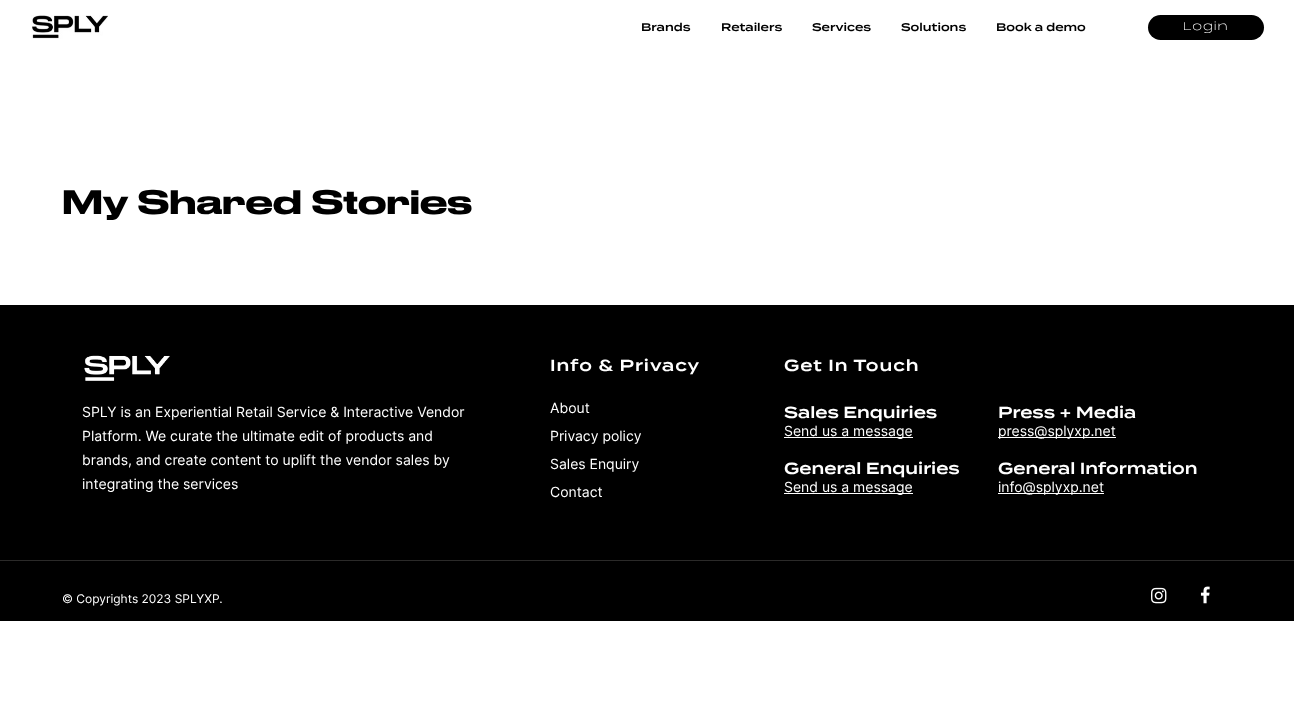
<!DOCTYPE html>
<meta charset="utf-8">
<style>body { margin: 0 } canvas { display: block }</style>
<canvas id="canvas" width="1294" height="718"></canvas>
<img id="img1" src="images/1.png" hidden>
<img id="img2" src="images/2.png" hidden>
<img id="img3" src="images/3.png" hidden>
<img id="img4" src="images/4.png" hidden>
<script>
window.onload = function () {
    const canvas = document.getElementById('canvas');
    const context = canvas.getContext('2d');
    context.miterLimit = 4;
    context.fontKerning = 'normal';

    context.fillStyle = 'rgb(255, 255, 255)';
    context.fillRect(0, 0, 1294, 718);
    context.drawImage(document.getElementById('img1'), 31, 15, 77, 24);
    context.fillStyle = 'rgb(0, 0, 0)';
    context.beginPath();
    context.roundRect(1148, 15, 116, 25, 12.5);
    context.fill();
    context.fillRect(0, 305, 1294, 316);
    context.drawImage(document.getElementById('img2'), 84, 355, 86, 26);
    context.fillStyle = 'rgb(255, 255, 255)';
    context.fillRect(784, 437, 129, 1);
    context.fillRect(998, 437, 118, 1);
    context.fillRect(784, 493, 129, 1);
    context.fillRect(998, 493, 106, 1);
    context.fillStyle = 'rgb(43, 42, 41)';
    context.fillRect(0, 560, 1294, 1);
    context.drawImage(document.getElementById('img3'), 1151, 587, 16, 17);
    context.drawImage(document.getElementById('img4'), 1200, 586, 10, 18);
    context.font = '600 11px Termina';
    context.fillStyle = 'rgb(0, 0, 0)';
    context.fillText('Brands', 641, 31);
    context.fillText('Retailers', 721, 31);
    context.fillText('Services', 812, 31);
    context.fillText('Solutions', 901, 31);
    context.fillText('Book a demo', 996, 31);
    context.letterSpacing = '1px';
    context.font = '300 11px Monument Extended';
    context.fillStyle = 'rgb(255, 255, 255)';
    context.fillText('Login', 1183, 30);
    context.letterSpacing = '0px';
    context.font = '500 32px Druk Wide';
    context.fillStyle = 'rgb(0, 0, 0)';
    context.fillText('My Shared Stories', 62, 214);
    context.font = '14px Inter';
    context.fillStyle = 'rgb(255, 255, 255)';
    context.fillText('SPLY is an Experiential Retail Service & Interactive Vendor', 82, 417);
    context.fillText('Platform. We curate the ultimate edit of products and', 82, 441);
    context.fillText('brands, and create content to uplift the vendor sales by', 82, 465);
    context.fillText('integrating the services', 82, 489);
    context.letterSpacing = '1px';
    context.font = '600 16px Termina';
    context.fillText('Info & Privacy', 550, 371);
    context.letterSpacing = '0px';
    context.font = '14px Inter';
    context.fillText('About', 550, 413);
    context.fillText('Privacy policy', 550, 441);
    context.fillText('Sales Enquiry', 550, 469);
    context.fillText('Contact', 550, 497);
    context.letterSpacing = '1px';
    context.font = '600 16px Termina';
    context.fillText('Get In Touch', 784, 371);
    context.letterSpacing = '0px';
    context.fillText('Sales Enquiries', 784, 418);
    context.font = '14px Inter';
    context.fillText('Send us a message', 784, 436);
    context.font = '600 16px Termina';
    context.fillText('Press + Media', 998, 418);
    context.font = '14px Inter';
    context.fillText('press@splyxp.net', 998, 436);
    context.font = '600 16px Termina';
    context.fillText('General Enquiries', 784, 474);
    context.font = '14px Inter';
    context.fillText('Send us a message', 784, 492);
    context.font = '600 16px Termina';
    context.fillText('General Information', 998, 474);
    context.font = '14px Inter';
    context.fillText('info@splyxp.net', 998, 492);
    context.font = '12px Inter';
    context.fillText('© Copyrights 2023 SPLYXP.', 62, 603);
};
</script>
